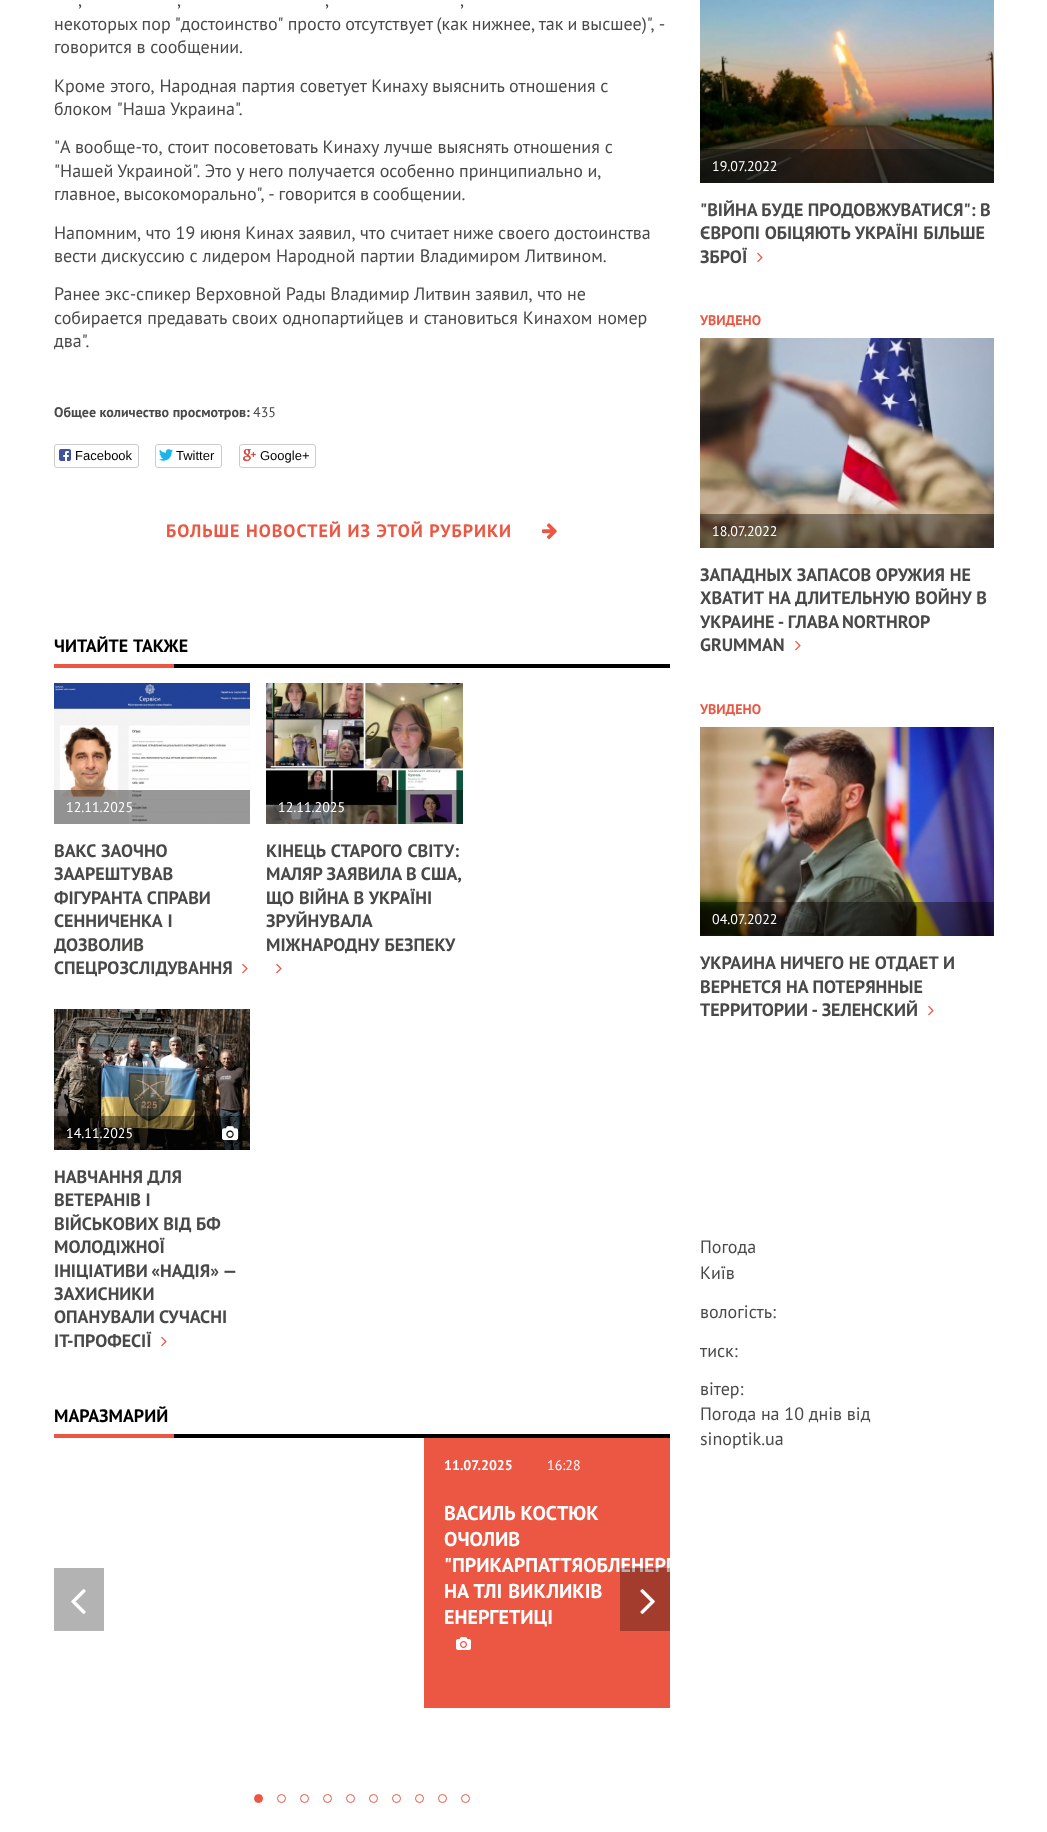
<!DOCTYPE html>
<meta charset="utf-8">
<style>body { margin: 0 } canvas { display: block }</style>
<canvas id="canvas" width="1047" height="1832"></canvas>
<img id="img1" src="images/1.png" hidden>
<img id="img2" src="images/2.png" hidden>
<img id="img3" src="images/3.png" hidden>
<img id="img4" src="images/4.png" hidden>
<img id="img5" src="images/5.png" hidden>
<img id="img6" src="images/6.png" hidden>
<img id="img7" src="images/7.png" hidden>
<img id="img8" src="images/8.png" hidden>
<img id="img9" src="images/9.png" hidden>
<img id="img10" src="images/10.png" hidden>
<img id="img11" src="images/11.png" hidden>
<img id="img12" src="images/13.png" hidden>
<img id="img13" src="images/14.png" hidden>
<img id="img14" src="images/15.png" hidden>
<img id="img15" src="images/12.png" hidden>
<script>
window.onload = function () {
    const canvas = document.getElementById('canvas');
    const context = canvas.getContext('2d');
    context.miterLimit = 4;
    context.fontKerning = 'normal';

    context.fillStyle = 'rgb(255, 255, 255)';
    context.fillRect(0, 0, 1047, 1832);
    context.beginPath();
    context.roundRect(54.5, 444.5, 84, 23, 2.5);
    context.strokeStyle = 'rgb(204, 204, 204)';
    context.stroke();
    context.drawImage(document.getElementById('img1'), 59, 449, 12, 12);
    context.beginPath();
    context.roundRect(155.5, 444.5, 66, 23, 2.5);
    context.stroke();
    context.drawImage(document.getElementById('img2'), 159, 449, 14, 12);
    context.beginPath();
    context.roundRect(239.5, 444.5, 76, 23, 2.5);
    context.stroke();
    context.drawImage(document.getElementById('img3'), 243, 449, 13, 12);
    context.drawImage(document.getElementById('img4'), 542, 523, 15, 16);
    context.fillStyle = 'rgb(0, 0, 0)';
    context.fillRect(174, 664, 496, 4);
    context.fillStyle = 'rgb(235, 87, 67)';
    context.fillRect(54, 664, 120, 4);
    context.drawImage(document.getElementById('img5'), 54, 683, 196, 141);
    context.fillStyle = 'rgba(0, 0, 0, 0.4)';
    context.fillRect(54, 790, 196, 34);
    context.drawImage(document.getElementById('img6'), 242, 963, 6, 11);
    context.drawImage(document.getElementById('img7'), 266, 683, 197, 141);
    context.fillRect(266, 790, 197, 34);
    context.drawImage(document.getElementById('img6'), 276, 963, 6, 11);
    context.drawImage(document.getElementById('img8'), 54, 1009, 196, 141);
    context.fillRect(54, 1116, 196, 34);
    context.drawImage(document.getElementById('img9'), 222, 1126, 17, 15);
    context.drawImage(document.getElementById('img6'), 161, 1336, 6, 11);
    context.fillStyle = 'rgb(0, 0, 0)';
    context.fillRect(174, 1434, 496, 4);
    context.fillStyle = 'rgb(235, 87, 67)';
    context.fillRect(54, 1434, 120, 4);
    context.fillRect(424, 1438, 246, 270);
    context.drawImage(document.getElementById('img10'), 456, 1637, 15, 13);
    context.fillStyle = 'rgb(179, 179, 179)';
    context.fillRect(54, 1568, 50, 63);
    context.drawImage(document.getElementById('img11'), 71, 1589, 15, 25);
    context.fillStyle = 'rgb(235, 87, 67)';
    context.beginPath();
    context.arc(258.5, 1798.5, 4, 0, 2 * Math.PI);
    context.fill();
    context.strokeStyle = 'rgb(235, 87, 67)';
    context.stroke();
    context.beginPath();
    context.arc(281.5, 1798.5, 4, 0, 2 * Math.PI);
    context.stroke();
    context.beginPath();
    context.arc(304.5, 1798.5, 4, 0, 2 * Math.PI);
    context.stroke();
    context.beginPath();
    context.arc(327.5, 1798.5, 4, 0, 2 * Math.PI);
    context.stroke();
    context.beginPath();
    context.arc(350.5, 1798.5, 4, 0, 2 * Math.PI);
    context.stroke();
    context.beginPath();
    context.arc(373.5, 1798.5, 4, 0, 2 * Math.PI);
    context.stroke();
    context.beginPath();
    context.arc(396.5, 1798.5, 4, 0, 2 * Math.PI);
    context.stroke();
    context.beginPath();
    context.arc(419.5, 1798.5, 4, 0, 2 * Math.PI);
    context.stroke();
    context.beginPath();
    context.arc(442.5, 1798.5, 4, 0, 2 * Math.PI);
    context.stroke();
    context.beginPath();
    context.arc(465.5, 1798.5, 4, 0, 2 * Math.PI);
    context.stroke();
    context.drawImage(document.getElementById('img12'), 700, 0, 294, 183);
    context.fillStyle = 'rgba(0, 0, 0, 0.4)';
    context.fillRect(700, 149, 294, 34);
    context.drawImage(document.getElementById('img6'), 757, 252, 6, 11);
    context.drawImage(document.getElementById('img13'), 700, 338, 294, 210);
    context.fillRect(700, 514, 294, 34);
    context.drawImage(document.getElementById('img6'), 795, 640, 6, 11);
    context.drawImage(document.getElementById('img14'), 700, 727, 294, 209);
    context.fillRect(700, 902, 294, 34);
    context.drawImage(document.getElementById('img6'), 928, 1005, 6, 11);
    context.font = '18px PT Sans';
    context.fillStyle = 'rgb(73, 73, 72)';
    context.fillText(',', 78, 6);
    context.fillText(',', 177, 6);
    context.fillText(',', 325, 6);
    context.fillText(',', 460, 6);
    context.wordSpacing = '-0.75px';
    context.fillText('некоторых пор "достоинство" просто отсутствует (как нижнее, так и высшее)", -', 54, 30);
    context.wordSpacing = '0px';
    context.fillText('говорится в сообщении.', 54, 53);
    context.fillText('Кроме этого, Народная партия советует Кинаху выяснить отношения с', 54, 92);
    context.fillText('блоком "Наша Украина".', 54, 115);
    context.wordSpacing = '0.25px';
    context.fillText('"А вообще-то, стоит посоветовать Кинаху лучше выяснять отношения с', 54, 153);
    context.wordSpacing = '-0.25px';
    context.fillText('"Нашей Украиной". Это у него получается особенно принципиально и,', 54, 177);
    context.wordSpacing = '-1px';
    context.fillText('главное, высокоморально", - говорится в сообщении.', 54, 200);
    context.wordSpacing = '-0.25px';
    context.fillText('Напомним, что 19 июня Кинах заявил, что считает ниже своего достоинства', 54, 239);
    context.wordSpacing = '0px';
    context.fillText('вести дискуссию с лидером Народной партии Владимиром Литвином.', 54, 262);
    context.wordSpacing = '-0.25px';
    context.fillText('Ранее экс-спикер Верховной Рады Владимир Литвин заявил, что не', 54, 300);
    context.wordSpacing = '0.25px';
    context.fillText('собирается предавать своих однопартийцев и становиться Кинахом номер', 54, 324);
    context.wordSpacing = '0px';
    context.fillText('два".', 54, 347);
    context.font = 'bold 14px PT Sans';
    context.fillText('Общее количество просмотров:', 54, 417);
    context.font = '14px PT Sans';
    context.fillText('435', 253, 417);
    context.font = '13px Liberation Sans';
    context.fillStyle = 'rgb(0, 0, 0)';
    context.fillText('Facebook', 75, 460);
    context.fillText('Twitter', 176, 460);
    context.fillText('Google+', 260, 460);
    context.letterSpacing = '1px';
    context.font = 'bold 18px PT Sans';
    context.fillStyle = 'rgb(235, 87, 67)';
    context.fillText('БОЛЬШЕ НОВОСТЕЙ ИЗ ЭТОЙ РУБРИКИ', 166, 537);
    context.letterSpacing = '0px';
    context.wordSpacing = '1px';
    context.fillStyle = 'rgb(0, 0, 0)';
    context.fillText('ЧИТАЙТЕ ТАКЖЕ', 54, 652);
    context.wordSpacing = '0px';
    context.font = '14px PT Sans';
    context.fillStyle = 'rgb(255, 255, 255)';
    context.fillText('12.11.2025', 66, 812);
    context.wordSpacing = '1px';
    context.font = 'bold 18px PT Sans';
    context.fillStyle = 'rgb(73, 73, 72)';
    context.fillText('ВАКС ЗАОЧНО', 54, 857);
    context.wordSpacing = '0px';
    context.fillText('ЗААРЕШТУВАВ', 54, 880);
    context.wordSpacing = '1px';
    context.fillText('ФІГУРАНТА СПРАВИ', 54, 904);
    context.fillText('СЕННИЧЕНКА І', 54, 927);
    context.wordSpacing = '0px';
    context.fillText('ДОЗВОЛИВ', 54, 951);
    context.fillText('СПЕЦРОЗСЛІДУВАННЯ', 54, 974);
    context.font = '14px PT Sans';
    context.fillStyle = 'rgb(255, 255, 255)';
    context.fillText('12.11.2025', 278, 812);
    context.wordSpacing = '1px';
    context.font = 'bold 18px PT Sans';
    context.fillStyle = 'rgb(73, 73, 72)';
    context.fillText('КІНЕЦЬ СТАРОГО СВІТУ:', 266, 857);
    context.wordSpacing = '0px';
    context.fillText('МАЛЯР ЗАЯВИЛА В США,', 266, 880);
    context.wordSpacing = '0.5px';
    context.fillText('ЩО ВІЙНА В УКРАЇНІ', 266, 904);
    context.wordSpacing = '0px';
    context.fillText('ЗРУЙНУВАЛА', 266, 927);
    context.wordSpacing = '1px';
    context.fillText('МІЖНАРОДНУ БЕЗПЕКУ', 266, 951);
    context.wordSpacing = '0px';
    context.font = '14px PT Sans';
    context.fillStyle = 'rgb(255, 255, 255)';
    context.fillText('14.11.2025', 66, 1138);
    context.font = 'bold 18px PT Sans';
    context.fillStyle = 'rgb(73, 73, 72)';
    context.fillText('НАВЧАННЯ ДЛЯ', 54, 1183);
    context.fillText('ВЕТЕРАНІВ І', 54, 1206);
    context.fillText('ВІЙСЬКОВИХ ВІД БФ', 54, 1230);
    context.fillText('МОЛОДІЖНОЇ', 54, 1253);
    context.wordSpacing = '-1px';
    context.fillText('ІНІЦІАТИВИ «НАДІЯ» —', 54, 1277);
    context.wordSpacing = '0px';
    context.fillText('ЗАХИСНИКИ', 54, 1300);
    context.fillText('ОПАНУВАЛИ СУЧАСНІ', 54, 1323);
    context.fillText('IT-ПРОФЕСІЇ', 54, 1347);
    context.fillStyle = 'rgb(0, 0, 0)';
    context.fillText('МАРАЗМАРИЙ', 54, 1422);
    context.font = 'bold 14px PT Sans';
    context.fillStyle = 'rgb(255, 255, 255)';
    context.fillText('11.07.2025', 444, 1470);
    context.font = '14px PT Sans';
    context.fillText('16:28', 547, 1470);
    context.wordSpacing = '0.5px';
    context.font = 'bold 20px PT Sans';
    context.fillText('ВАСИЛЬ КОСТЮК', 444, 1520);
    context.wordSpacing = '0px';
    context.fillText('ОЧОЛИВ', 444, 1546);
    context.save();
    context.beginPath();
    context.rect(424, 1438, 246, 270);
    context.clip();
    context.fillText('"ПРИКАРПАТТЯОБЛЕНЕРГ', 444, 1572);
    context.restore();
    context.wordSpacing = '1px';
    context.fillText('НА ТЛІ ВИКЛИКІВ', 444, 1598);
    context.wordSpacing = '0px';
    context.fillText('ЕНЕРГЕТИЦІ', 444, 1624);
    context.fillStyle = 'rgba(0, 0, 0, 0.3)';
    context.fillRect(620, 1568, 50, 63);
    context.drawImage(document.getElementById('img15'), 640, 1589, 15, 25);
    context.font = '14px PT Sans';
    context.fillStyle = 'rgb(255, 255, 255)';
    context.fillText('19.07.2022', 712, 171);
    context.font = 'bold 18px PT Sans';
    context.fillStyle = 'rgb(73, 73, 72)';
    context.fillText('"ВІЙНА БУДЕ ПРОДОВЖУВАТИСЯ": В', 700, 216);
    context.wordSpacing = '0.5px';
    context.fillText('ЄВРОПІ ОБІЦЯЮТЬ УКРАЇНІ БІЛЬШЕ', 700, 239);
    context.wordSpacing = '0px';
    context.fillText('ЗБРОЇ', 700, 263);
    context.font = 'bold 14px PT Sans';
    context.fillStyle = 'rgb(235, 87, 67)';
    context.fillText('УВИДЕНО', 700, 325);
    context.font = '14px PT Sans';
    context.fillStyle = 'rgb(255, 255, 255)';
    context.fillText('18.07.2022', 712, 536);
    context.wordSpacing = '0.25px';
    context.font = 'bold 18px PT Sans';
    context.fillStyle = 'rgb(73, 73, 72)';
    context.fillText('ЗАПАДНЫХ ЗАПАСОВ ОРУЖИЯ НЕ', 700, 581);
    context.wordSpacing = '0.5px';
    context.fillText('ХВАТИТ НА ДЛИТЕЛЬНУЮ ВОЙНУ В', 700, 604);
    context.wordSpacing = '-1px';
    context.fillText('УКРАИНЕ - ГЛАВА NORTHROP', 700, 628);
    context.wordSpacing = '0px';
    context.fillText('GRUMMAN', 700, 651);
    context.font = 'bold 14px PT Sans';
    context.fillStyle = 'rgb(235, 87, 67)';
    context.fillText('УВИДЕНО', 700, 714);
    context.font = '14px PT Sans';
    context.fillStyle = 'rgb(255, 255, 255)';
    context.fillText('04.07.2022', 712, 924);
    context.wordSpacing = '0.5px';
    context.font = 'bold 18px PT Sans';
    context.fillStyle = 'rgb(73, 73, 72)';
    context.fillText('УКРАИНА НИЧЕГО НЕ ОТДАЕТ И', 700, 969);
    context.wordSpacing = '0px';
    context.fillText('ВЕРНЕТСЯ НА ПОТЕРЯННЫЕ', 700, 993);
    context.wordSpacing = '-1px';
    context.fillText('ТЕРРИТОРИИ - ЗЕЛЕНСКИЙ', 700, 1016);
    context.wordSpacing = '0px';
    context.font = '18px PT Sans';
    context.fillText('Погода', 700, 1253);
    context.fillText('Київ', 700, 1279);
    context.fillText('вологість:', 700, 1318);
    context.fillText('тиск:', 700, 1357);
    context.fillText('вітер:', 700, 1395);
    context.fillText('Погода на 10 днів від', 700, 1420);
    context.fillText('sinoptik.ua', 700, 1445);
};
</script>
